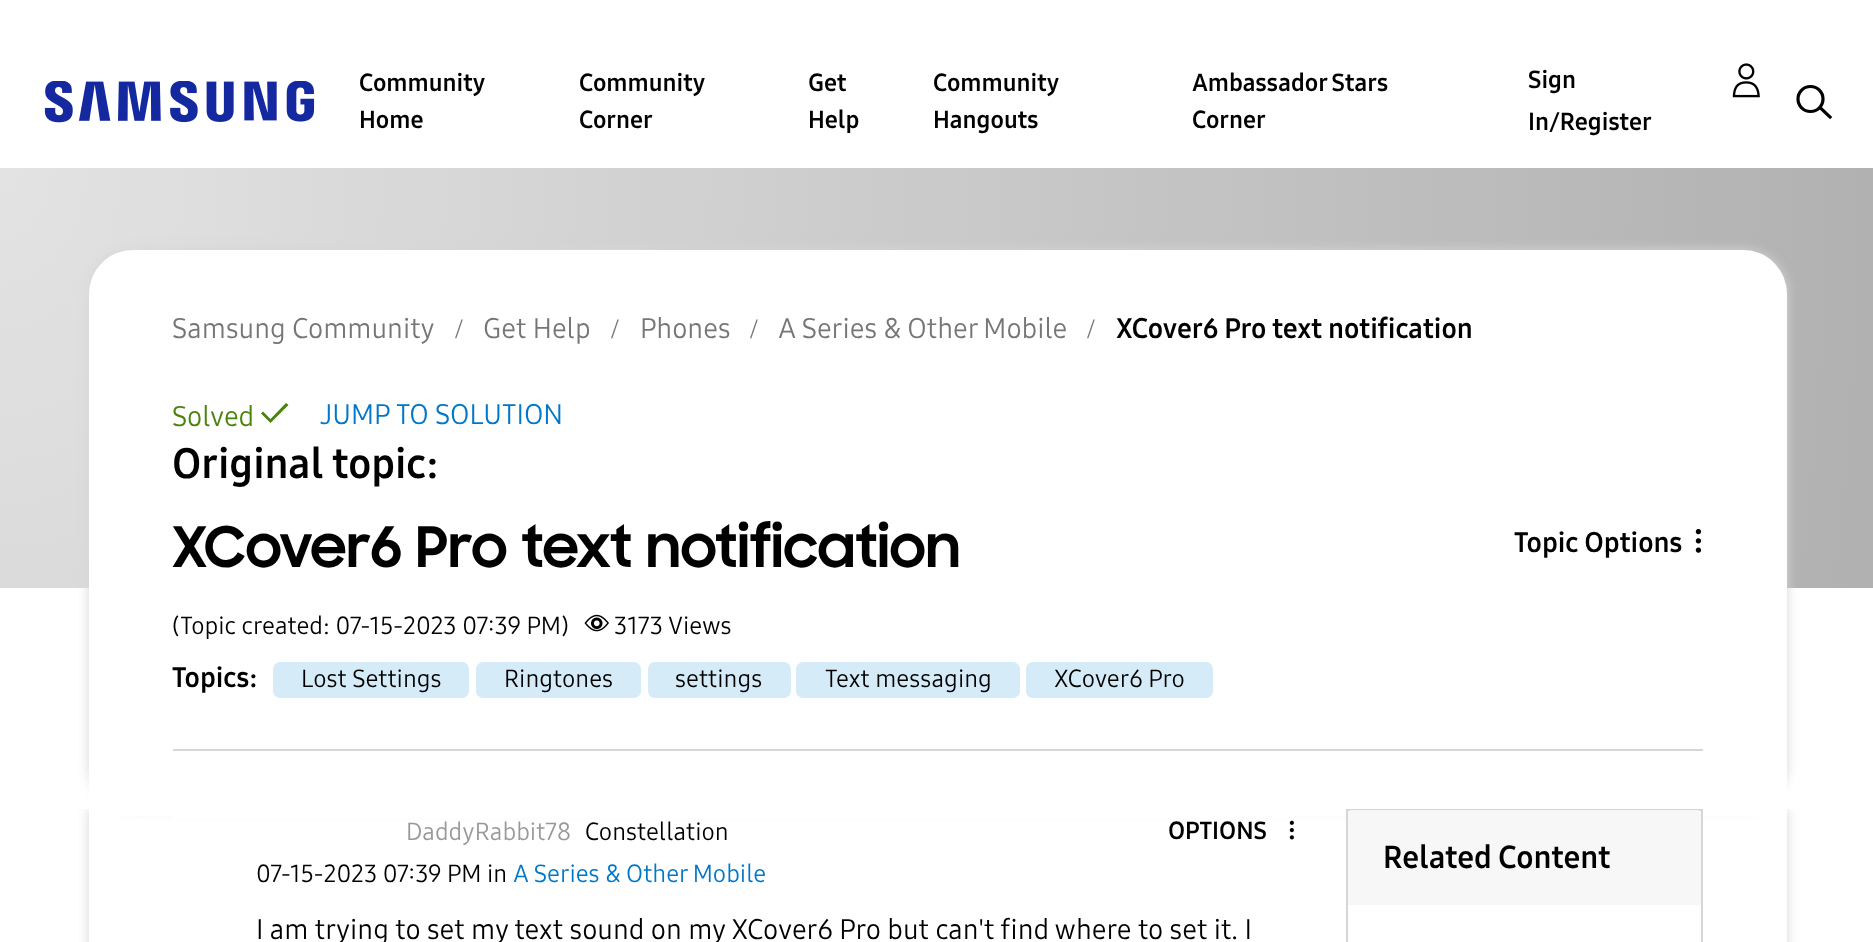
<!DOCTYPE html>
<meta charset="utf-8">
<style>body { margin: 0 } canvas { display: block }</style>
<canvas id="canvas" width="1873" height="942"></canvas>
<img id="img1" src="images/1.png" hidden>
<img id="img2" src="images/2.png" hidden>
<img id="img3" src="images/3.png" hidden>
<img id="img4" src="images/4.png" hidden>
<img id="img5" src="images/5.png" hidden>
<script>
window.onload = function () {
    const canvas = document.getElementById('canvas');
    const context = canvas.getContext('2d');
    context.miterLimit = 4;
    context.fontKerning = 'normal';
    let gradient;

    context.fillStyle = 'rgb(255, 255, 255)';
    context.fillRect(0, 0, 1873, 942);
    context.save();
    context.beginPath();
    context.moveTo(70, 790);
    context.lineTo(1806, 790);
    context.lineTo(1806, 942);
    context.lineTo(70, 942);
    context.closePath();
    context.moveTo(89, 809);
    context.lineTo(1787, 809);
    context.lineTo(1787, 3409);
    context.lineTo(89, 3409);
    context.closePath();
    context.clip('evenodd');
    context.fillStyle = 'rgb(214, 214, 214)';
    context.filter = 'blur(6px)';
    context.beginPath();
    context.rect(89, 809, 1698, 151);
    context.fill();
    context.filter = 'none';
    context.restore();
    context.fillRect(82, 800, 1712, 9);
    context.drawImage(document.getElementById('img1'), 44, 81, 271, 42);
    context.drawImage(document.getElementById('img2'), 1732, 63, 28, 35);
    context.beginPath();
    context.arc(1810.5, 99, 12.5, 0, 2 * Math.PI);
    context.strokeStyle = 'rgb(0, 0, 0)';
    context.lineWidth = 3.2;
    context.stroke();
    context.beginPath();
    context.moveTo(1821.5, 109);
    context.lineTo(1830, 117);
    context.lineCap = 'square';
    context.stroke();
    gradient = context.createRadialGradient(0, 124.93, 0, 0, 124.93, 1874);
    gradient.addColorStop(0, 'rgb(227, 227, 227)');
    gradient.addColorStop(1, 'rgb(177, 177, 177)');
    context.fillStyle = gradient;
    context.beginPath();
    context.rect(0, 168, 1873, 420);
    context.save();
    context.clip();
    context.scale(1, 2520 / 1874);
    context.fillRect(0, 0, 1873, 701);
    context.restore();
    context.fillStyle = 'rgb(214, 214, 214)';
    context.filter = 'blur(6px)';
    context.beginPath();
    context.roundRect(89, 250, 1698, 559, 44);
    context.fill();
    context.filter = 'none';
    context.fillStyle = 'rgb(255, 255, 255)';
    context.beginPath();
    context.roundRect(89, 250, 1698, 559, [44, 44, 0, 0]);
    context.fill();
    context.fillStyle = 'rgb(214, 214, 214)';
    context.fillRect(173, 749, 1530, 2);
    context.fillStyle = 'rgb(75, 131, 13)';
    context.beginPath();
    context.moveTo(286, 403);
    context.lineTo(288.5, 405);
    context.lineTo(270.5, 423);
    context.lineTo(261, 413.5);
    context.lineTo(263, 411.5);
    context.lineTo(270.5, 419);
    context.closePath();
    context.fill();
    context.drawImage(document.getElementById('img3'), 1695, 529, 7, 24);
    context.drawImage(document.getElementById('img4'), 584, 614, 25, 18);
    context.fillStyle = 'rgb(213, 236, 248)';
    context.beginPath();
    context.roundRect(273, 662, 196, 36, 7);
    context.fill();
    context.beginPath();
    context.roundRect(476, 662, 165, 36, 7);
    context.fill();
    context.beginPath();
    context.roundRect(648, 662, 143, 36, 7);
    context.fill();
    context.beginPath();
    context.roundRect(796, 662, 224, 36, 7);
    context.fill();
    context.beginPath();
    context.roundRect(1026, 662, 187, 36, 7);
    context.fill();
    context.fillStyle = 'rgb(255, 255, 255)';
    context.fillRect(105, 809, 1666, 7);
    context.fillRect(173, 816, 1120, 2);
    context.drawImage(document.getElementById('img5'), 1289, 820, 5, 20);
    context.fillRect(1348, 816, 353, 2);
    context.strokeStyle = 'rgb(214, 214, 214)';
    context.lineWidth = 2;
    context.strokeRect(1347, 810, 355, 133);
    context.fillStyle = 'rgb(247, 247, 247)';
    context.beginPath();
    context.roundRect(1348, 810, 353, 95, [4, 4, 0, 0]);
    context.fill();
    context.font = 'bold 24.5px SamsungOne';
    context.fillStyle = 'rgb(0, 0, 0)';
    context.fillText('Community', 359, 91);
    context.fillText('Home', 359, 128);
    context.fillText('Community', 579, 91);
    context.fillText('Corner', 579, 128);
    context.fillText('Get', 808, 91);
    context.fillText('Help', 808, 128);
    context.fillText('Community', 933, 91);
    context.fillText('Hangouts', 933, 128);
    context.fillText('Ambassador Stars', 1192, 91);
    context.fillText('Corner', 1192, 128);
    context.fillText('Sign', 1528, 88);
    context.fillText('In/Register', 1528, 130);
    context.font = '28px SamsungOne';
    context.fillStyle = 'rgb(118, 118, 118)';
    context.fillText('Samsung Community', 172, 338);
    context.font = '28px Liberation Serif';
    context.fillText('/', 455, 338);
    context.font = '28px SamsungOne';
    context.fillText('Get Help', 483, 338);
    context.font = '28px Liberation Serif';
    context.fillText('/', 611, 338);
    context.font = '28px SamsungOne';
    context.fillText('Phones', 640, 338);
    context.font = '28px Liberation Serif';
    context.fillText('/', 750, 338);
    context.font = '28px SamsungOne';
    context.fillText('A Series & Other Mobile', 778, 338);
    context.font = '28px Liberation Serif';
    context.fillText('/', 1087, 338);
    context.font = 'bold 28px SamsungOne';
    context.fillStyle = 'rgb(0, 0, 0)';
    context.fillText('XCover6 Pro text notification', 1116, 338);
    context.font = '28px SamsungOne';
    context.fillStyle = 'rgb(75, 131, 13)';
    context.fillText('Solved', 172, 426);
    context.fillStyle = 'rgb(0, 119, 200)';
    context.fillText('JUMP TO SOLUTION', 320, 424);
    context.font = 'bold 42px SamsungOne';
    context.fillStyle = 'rgb(0, 0, 0)';
    context.fillText('Original topic:', 172, 478);
    context.font = 'bold 56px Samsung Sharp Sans';
    context.fillText('XCover6 Pro text notification', 172, 567);
    context.font = 'bold 28px SamsungOne';
    context.fillText('Topic Options', 1514, 552);
    context.font = '24.5px SamsungOne';
    context.fillText('(Topic created: 07-15-2023 07:39 PM)', 172, 634);
    context.fillText('3173 Views', 614, 634);
    context.font = 'bold 28px SamsungOne';
    context.fillText('Topics:', 172, 687);
    context.font = '24.5px SamsungOne';
    context.fillText('Lost Settings', 301, 687);
    context.fillText('Ringtones', 504, 687);
    context.fillText('settings', 675, 687);
    context.fillText('Text messaging', 825, 687);
    context.fillText('XCover6 Pro', 1054, 687);
    context.fillStyle = 'rgb(153, 153, 153)';
    context.fillText('DaddyRabbit78', 406, 840);
    context.fillStyle = 'rgb(0, 0, 0)';
    context.fillText('Constellation', 585, 840);
    context.font = 'bold 24.5px SamsungOne';
    context.fillText('OPTIONS', 1168, 839);
    context.font = '24.5px SamsungOne';
    context.fillText('07-15-2023 07:39 PM in', 256, 882);
    context.fillStyle = 'rgb(0, 119, 200)';
    context.fillText('A Series & Other Mobile', 513, 882);
    context.font = '28px SamsungOne';
    context.fillStyle = 'rgb(0, 0, 0)';
    context.fillText('I am trying to set my text sound on my XCover6 Pro but can\'t find where to set it. I', 256, 939);
    context.font = 'bold 31.5px SamsungOne';
    context.fillText('Related Content', 1383, 868);
};
</script>
